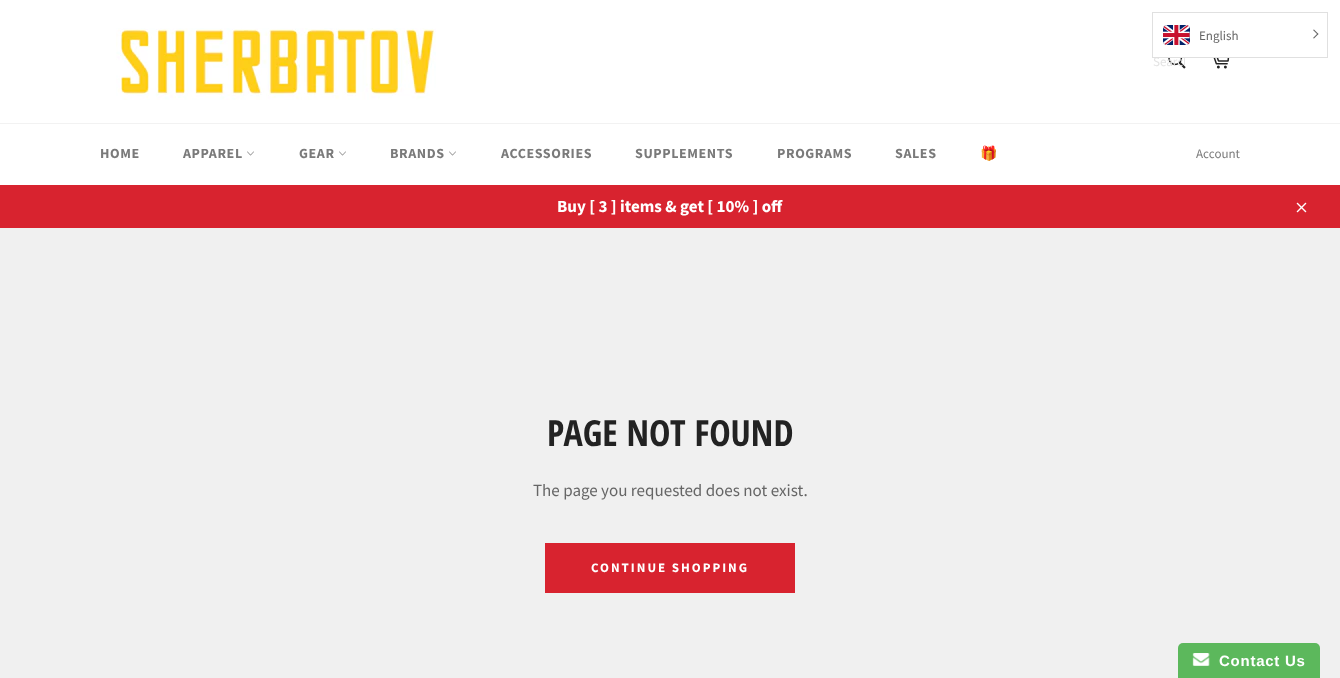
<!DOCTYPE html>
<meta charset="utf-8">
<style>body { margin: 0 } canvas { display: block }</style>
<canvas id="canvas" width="1340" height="678"></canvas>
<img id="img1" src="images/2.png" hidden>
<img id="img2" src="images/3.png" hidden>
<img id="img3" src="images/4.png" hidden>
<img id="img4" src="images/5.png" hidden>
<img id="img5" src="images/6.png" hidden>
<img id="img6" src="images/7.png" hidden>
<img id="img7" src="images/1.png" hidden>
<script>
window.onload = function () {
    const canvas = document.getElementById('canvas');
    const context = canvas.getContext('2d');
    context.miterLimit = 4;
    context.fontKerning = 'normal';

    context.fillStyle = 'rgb(240, 240, 240)';
    context.fillRect(0, 0, 1340, 678);
    context.fillStyle = 'rgb(255, 255, 255)';
    context.fillRect(0, 0, 1340, 185);
    context.drawImage(document.getElementById('img1'), 116, 28, 320, 72);
    context.drawImage(document.getElementById('img2'), 1168, 58, 18, 11);
    context.drawImage(document.getElementById('img3'), 1213, 58, 17, 11);
    context.fillStyle = 'rgb(242, 242, 242)';
    context.fillRect(0, 123, 1340, 1);
    context.drawImage(document.getElementById('img4'), 247, 151, 7, 5);
    context.drawImage(document.getElementById('img4'), 339, 151, 7, 5);
    context.drawImage(document.getElementById('img4'), 449, 151, 7, 5);
    context.fillStyle = 'rgb(216, 35, 47)';
    context.fillRect(0, 185, 1340, 43);
    context.drawImage(document.getElementById('img5'), 1296, 202, 11, 11);
    context.fillRect(545, 543, 250, 50);
    context.fillStyle = 'rgb(92, 184, 92)';
    context.beginPath();
    context.roundRect(1178, 643, 142, 35, [5, 5, 0, 0]);
    context.fill();
    context.drawImage(document.getElementById('img6'), 1192, 653, 18, 13);
    context.save();
    context.beginPath();
    context.rect(1153, 53, 32, 17);
    context.clip();
    context.font = '13px Source Sans Pro';
    context.fillStyle = 'rgb(227, 227, 227)';
    context.fillText('Search', 1153, 66);
    context.restore();
    context.fillStyle = 'rgb(255, 255, 255)';
    context.fillRect(1184, 56, 1, 1);
    context.strokeStyle = 'rgb(224, 224, 224)';
    context.strokeRect(1152.5, 12.5, 175, 45);
    context.fillStyle = 'rgb(102, 102, 102)';
    context.beginPath();
    context.moveTo(1314, 29.5);
    context.lineTo(1318.5, 34);
    context.lineTo(1317.5, 34.5);
    context.lineTo(1313, 30);
    context.closePath();
    context.fill();
    context.beginPath();
    context.moveTo(1317.5, 33.5);
    context.lineTo(1318.5, 34);
    context.lineTo(1314, 38.5);
    context.lineTo(1313, 38);
    context.closePath();
    context.fill();
    context.drawImage(document.getElementById('img7'), 1163, 25, 27, 20);
    context.font = '13px Source Sans Pro';
    context.fillText('English', 1199, 40);
    context.letterSpacing = '0.6px';
    context.font = 'bold 14px Source Sans Pro';
    context.fillStyle = 'rgb(122, 122, 122)';
    context.fillText('HOME', 100, 158);
    context.fillText('APPAREL', 183, 158);
    context.fillText('GEAR', 299, 158);
    context.fillText('BRANDS', 390, 158);
    context.fillText('ACCESSORIES', 501, 158);
    context.fillText('SUPPLEMENTS', 635, 158);
    context.fillText('PROGRAMS', 777, 158);
    context.fillText('SALES', 895, 158);
    context.font = 'bold 14px Noto Color Emoji';
    context.fillText('🎁', 980, 158);
    context.letterSpacing = '0px';
    context.font = '13px Source Sans Pro';
    context.fillText('Account', 1196, 158);
    context.font = 'bold 17px Source Sans Pro';
    context.fillStyle = 'rgb(255, 255, 255)';
    context.fillText('Buy [ 3 ] items & get [ 10% ] off', 557, 212);
    context.font = 'bold 36px Open Sans Condensed';
    context.fillStyle = 'rgb(34, 34, 34)';
    context.fillText('PAGE NOT FOUND', 547, 446);
    context.font = '17px Source Sans Pro';
    context.fillStyle = 'rgb(102, 102, 102)';
    context.fillText('The page you requested does not exist.', 533, 496);
    context.letterSpacing = '2px';
    context.font = 'bold 13px Source Sans Pro';
    context.fillStyle = 'rgb(255, 255, 255)';
    context.fillText('CONTINUE SHOPPING', 591, 572);
    context.letterSpacing = '0.75px';
    context.font = 'bold 15px Liberation Sans';
    context.fillText('Contact Us', 1219, 666);
};
</script>
